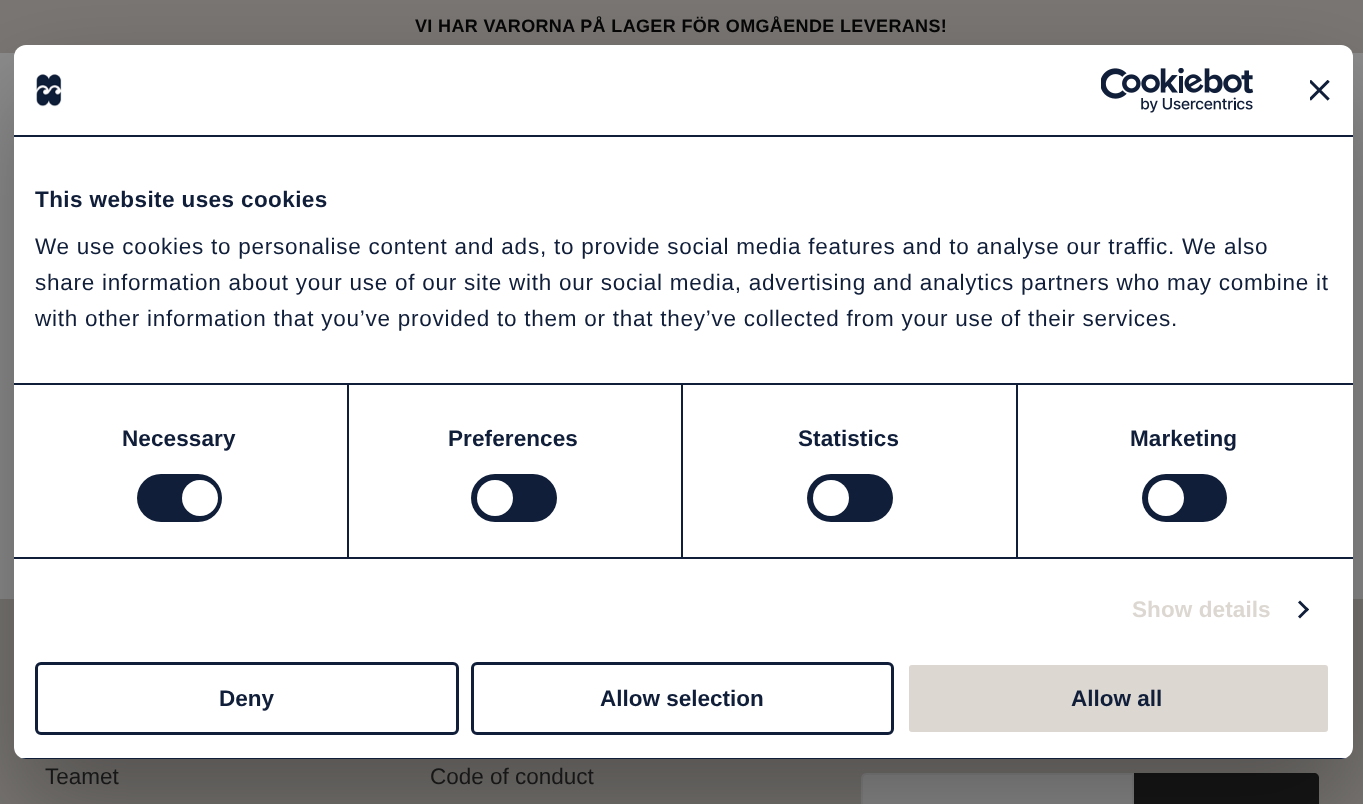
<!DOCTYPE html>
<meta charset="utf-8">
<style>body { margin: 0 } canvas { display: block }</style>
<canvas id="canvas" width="1363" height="804"></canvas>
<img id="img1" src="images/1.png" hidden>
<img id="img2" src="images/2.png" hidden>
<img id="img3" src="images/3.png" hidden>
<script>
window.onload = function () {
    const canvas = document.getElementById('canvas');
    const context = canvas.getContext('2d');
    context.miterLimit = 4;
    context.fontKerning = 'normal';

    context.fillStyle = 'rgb(140, 140, 140)';
    context.fillRect(0, 0, 1363, 804);
    context.fillStyle = 'rgb(121, 118, 115)';
    context.fillRect(0, 0, 1363, 53);
    context.fillRect(0, 599, 1363, 205);
    context.fillStyle = 'rgb(140, 140, 140)';
    context.beginPath();
    context.moveTo(866, 774);
    context.lineTo(1133, 774);
    context.lineTo(1133, 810);
    context.lineTo(866, 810);
    context.bezierCurveTo(864, 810, 862, 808, 862, 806);
    context.lineTo(862, 778);
    context.bezierCurveTo(862, 776, 864, 774, 866, 774);
    context.closePath();
    context.fill();
    context.strokeStyle = 'rgb(133, 133, 133)';
    context.lineWidth = 2;
    context.stroke();
    context.fillStyle = 'rgb(23, 23, 23)';
    context.beginPath();
    context.moveTo(1134, 773);
    context.lineTo(1314, 773);
    context.bezierCurveTo(1317, 773, 1319, 775, 1319, 778);
    context.lineTo(1319, 804);
    context.bezierCurveTo(1319, 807, 1317, 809, 1314, 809);
    context.lineTo(1134, 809);
    context.closePath();
    context.fill();
    context.fillStyle = 'rgba(0, 0, 0, 0.3)';
    context.filter = 'blur(51px)';
    context.beginPath();
    context.roundRect(14, 93, 1339, 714, 12);
    context.fill();
    context.filter = 'none';
    context.fillStyle = 'rgb(255, 255, 255)';
    context.beginPath();
    context.roundRect(14, 45, 1339, 714, 12);
    context.fill();
    context.fillStyle = 'rgb(16, 30, 57)';
    context.fillRect(14, 135, 1339, 2);
    context.drawImage(document.getElementById('img1'), 36, 74, 26, 33);
    context.drawImage(document.getElementById('img2'), 1101, 68, 153, 45);
    context.drawImage(document.getElementById('img3'), 1310, 80, 20, 21);
    context.fillRect(347, 384, 2, 173);
    context.fillRect(681, 384, 2, 173);
    context.fillRect(1016, 384, 2, 173);
    context.fillRect(14, 383, 1339, 2);
    context.fillRect(14, 557, 1339, 2);
    context.beginPath();
    context.roundRect(137, 474, 85, 48, 24);
    context.fill();
    context.fillStyle = 'rgb(255, 255, 255)';
    context.beginPath();
    context.arc(200, 498, 18, 0, 2 * Math.PI);
    context.fill();
    context.fillStyle = 'rgb(16, 30, 57)';
    context.beginPath();
    context.roundRect(471, 474, 86, 48, 24);
    context.fill();
    context.fillStyle = 'rgb(255, 255, 255)';
    context.beginPath();
    context.arc(495, 498, 18, 0, 2 * Math.PI);
    context.fill();
    context.fillStyle = 'rgb(16, 30, 57)';
    context.beginPath();
    context.roundRect(807, 474, 86, 48, 24);
    context.fill();
    context.fillStyle = 'rgb(255, 255, 255)';
    context.beginPath();
    context.arc(831, 498, 18, 0, 2 * Math.PI);
    context.fill();
    context.fillStyle = 'rgb(16, 30, 57)';
    context.beginPath();
    context.roundRect(1142, 474, 85, 48, 24);
    context.fill();
    context.fillStyle = 'rgb(255, 255, 255)';
    context.beginPath();
    context.arc(1166, 498, 18, 0, 2 * Math.PI);
    context.fill();
    context.fillStyle = 'rgb(16, 30, 57)';
    context.beginPath();
    context.moveTo(1300, 600.5);
    context.lineTo(1309, 609.5);
    context.lineTo(1307, 611.5);
    context.lineTo(1298, 602.5);
    context.closePath();
    context.fill();
    context.beginPath();
    context.moveTo(1307, 607.5);
    context.lineTo(1309, 609.5);
    context.lineTo(1300, 618.5);
    context.lineTo(1298, 616.5);
    context.closePath();
    context.fill();
    context.save();
    context.beginPath();
    context.roundRect(14, 45, 1339, 714, 12);
    context.clip();
    context.fillRect(14, 758, 1339, 1);
    context.restore();
    context.beginPath();
    context.roundRect(36.5, 663.5, 421, 70, 4.5);
    context.strokeStyle = 'rgb(16, 30, 57)';
    context.lineWidth = 3;
    context.stroke();
    context.beginPath();
    context.roundRect(472.5, 663.5, 420, 70, 4.5);
    context.stroke();
    context.fillStyle = 'rgb(220, 215, 209)';
    context.beginPath();
    context.roundRect(907.5, 663.5, 422, 70, 4.5);
    context.fill();
    context.strokeStyle = 'rgb(255, 255, 255)';
    context.stroke();
    context.letterSpacing = '0.35px';
    context.font = 'bold 18px Arimo';
    context.fillStyle = 'rgb(6, 6, 6)';
    context.fillText('VI HAR VARORNA PÅ LAGER FÖR OMGÅENDE LEVERANS!', 415, 32);
    context.letterSpacing = '0.4px';
    context.font = 'bold 22.5px Liberation Sans';
    context.fillStyle = 'rgb(16, 30, 57)';
    context.fillText('This website uses cookies', 35, 207);
    context.letterSpacing = '0.75px';
    context.font = '22.5px Liberation Sans';
    context.fillText('We use cookies to personalise content and ads, to provide social media features and to analyse our traffic. We also', 35, 254);
    context.fillText('share information about your use of our site with our social media, advertising and analytics partners who may combine it', 35, 290);
    context.fillText('with other information that you’ve provided to them or that they’ve collected from your use of their services.', 35, 326);
    context.letterSpacing = '0.1px';
    context.font = 'bold 22.5px Liberation Sans';
    context.fillText('Necessary', 122, 446);
    context.fillText('Preferences', 448, 446);
    context.fillText('Statistics', 798, 446);
    context.fillText('Marketing', 1130, 446);
    context.fillStyle = 'rgb(220, 215, 209)';
    context.fillText('Show details', 1132, 617);
    context.letterSpacing = '0px';
    context.fillStyle = 'rgb(16, 30, 57)';
    context.fillText('Deny', 219, 706);
    context.fillText('Allow selection', 600, 706);
    context.fillText('Allow all', 1071, 706);
    context.font = '22.5px Arimo';
    context.fillStyle = 'rgb(23, 23, 23)';
    context.fillText('Teamet', 45, 784);
    context.fillText('Code of conduct', 430, 784);
};
</script>
